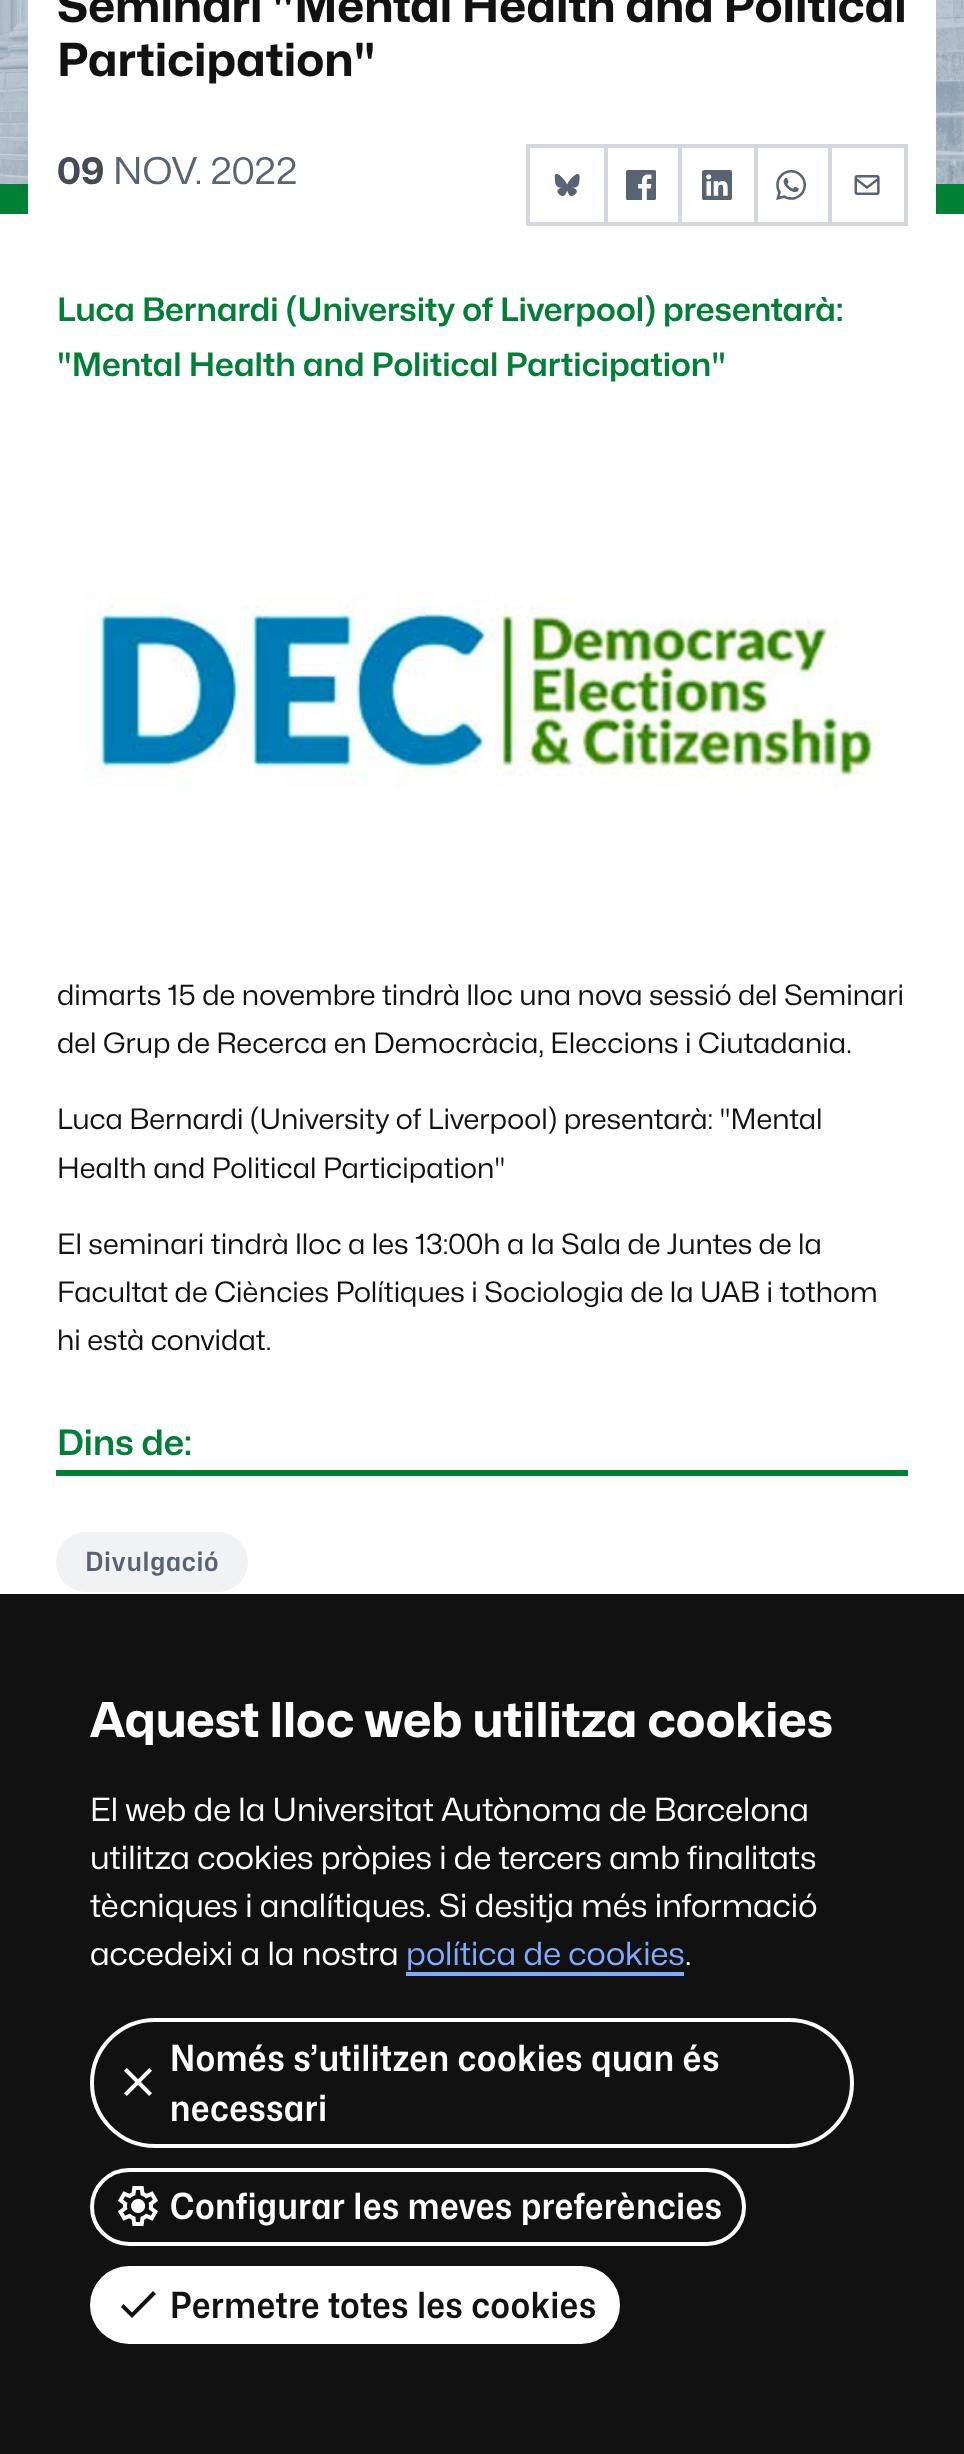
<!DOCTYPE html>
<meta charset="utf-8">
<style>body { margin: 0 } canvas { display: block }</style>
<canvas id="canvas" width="964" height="2454"></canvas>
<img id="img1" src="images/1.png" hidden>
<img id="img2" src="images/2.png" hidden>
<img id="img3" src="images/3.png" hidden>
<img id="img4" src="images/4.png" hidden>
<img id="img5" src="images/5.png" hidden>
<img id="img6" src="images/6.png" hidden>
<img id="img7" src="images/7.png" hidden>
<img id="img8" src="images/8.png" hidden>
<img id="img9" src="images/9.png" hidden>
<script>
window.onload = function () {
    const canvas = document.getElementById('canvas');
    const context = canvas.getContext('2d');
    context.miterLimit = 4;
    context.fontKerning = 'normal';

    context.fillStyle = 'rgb(255, 255, 255)';
    context.fillRect(0, 0, 964, 2454);
    context.drawImage(document.getElementById('img1'), 0, 0, 964, 184);
    context.fillStyle = 'rgb(0, 128, 55)';
    context.fillRect(0, 184, 964, 30);
    context.fillStyle = 'rgb(255, 255, 255)';
    context.fillRect(28, 0, 908, 214);
    context.strokeStyle = 'rgb(212, 216, 222)';
    context.lineWidth = 4;
    context.strokeRect(528, 146, 78, 78);
    context.drawImage(document.getElementById('img2'), 554, 174, 26, 23);
    context.fillStyle = 'rgb(212, 216, 222)';
    context.beginPath();
    context.moveTo(600, 144);
    context.lineTo(682, 144);
    context.lineTo(678, 148);
    context.lineTo(604, 148);
    context.closePath();
    context.fill();
    context.fillRect(678, 144, 4, 82);
    context.beginPath();
    context.moveTo(682, 226);
    context.lineTo(600, 226);
    context.lineTo(604, 222);
    context.lineTo(678, 222);
    context.closePath();
    context.fill();
    context.drawImage(document.getElementById('img3'), 626, 170, 30, 30);
    context.beginPath();
    context.moveTo(676, 144);
    context.lineTo(758, 144);
    context.lineTo(754, 148);
    context.lineTo(680, 148);
    context.closePath();
    context.fill();
    context.fillRect(754, 144, 4, 82);
    context.beginPath();
    context.moveTo(758, 226);
    context.lineTo(676, 226);
    context.lineTo(680, 222);
    context.lineTo(754, 222);
    context.closePath();
    context.fill();
    context.drawImage(document.getElementById('img4'), 702, 170, 30, 30);
    context.beginPath();
    context.moveTo(750, 144);
    context.lineTo(832, 144);
    context.lineTo(828, 148);
    context.lineTo(754, 148);
    context.closePath();
    context.fill();
    context.fillRect(828, 144, 4, 82);
    context.beginPath();
    context.moveTo(832, 226);
    context.lineTo(750, 226);
    context.lineTo(754, 222);
    context.lineTo(828, 222);
    context.closePath();
    context.fill();
    context.drawImage(document.getElementById('img5'), 776, 170, 30, 30);
    context.beginPath();
    context.moveTo(824, 144);
    context.lineTo(908, 144);
    context.lineTo(904, 148);
    context.lineTo(828, 148);
    context.closePath();
    context.fill();
    context.fillRect(904, 144, 4, 82);
    context.beginPath();
    context.moveTo(908, 226);
    context.lineTo(824, 226);
    context.lineTo(828, 222);
    context.lineTo(904, 222);
    context.closePath();
    context.fill();
    context.drawImage(document.getElementById('img6'), 854, 175, 26, 20);
    context.drawImage(document.getElementById('img7'), 84, 591, 796, 199);
    context.fillStyle = 'rgb(0, 128, 55)';
    context.fillRect(56, 1470, 852, 6);
    context.fillStyle = 'rgb(241, 242, 244)';
    context.beginPath();
    context.roundRect(56, 1532, 192, 60, 30);
    context.fill();
    context.fillStyle = 'rgb(17, 17, 17)';
    context.fillRect(0, 1594, 964, 860);
    context.fillStyle = 'rgb(128, 172, 255)';
    context.fillRect(406, 1972, 278, 4);
    context.beginPath();
    context.roundRect(92, 2020, 760, 126, 63);
    context.strokeStyle = 'rgb(255, 255, 255)';
    context.stroke();
    context.drawImage(document.getElementById('img8'), 124, 2068, 28, 28);
    context.beginPath();
    context.roundRect(92, 2170, 652, 74, 37);
    context.stroke();
    context.drawImage(document.getElementById('img9'), 118, 2186, 40, 40);
    context.fillStyle = 'rgb(255, 255, 255)';
    context.beginPath();
    context.roundRect(90, 2266, 530, 78, 39);
    context.fill();
    context.fillStyle = 'rgb(17, 17, 17)';
    context.beginPath();
    context.moveTo(132, 2312.5);
    context.lineTo(123.5, 2304);
    context.lineTo(121, 2307);
    context.lineTo(132, 2318);
    context.lineTo(156, 2294);
    context.lineTo(153, 2291);
    context.closePath();
    context.fill();
    context.font = 'bold 45.6px Mona Sans';
    context.fillStyle = 'rgb(18, 18, 18)';
    context.fillText('Seminari "Mental Health and Political', 57, 22);
    context.fillText('Participation"', 57, 76);
    context.font = 'bold 37px Mona Sans';
    context.fillStyle = 'rgb(67, 75, 86)';
    context.fillText('09', 57, 184);
    context.font = '37px Mona Sans';
    context.fillStyle = 'rgb(89, 100, 115)';
    context.fillText('NOV. 2022', 113, 184);
    context.font = '600 32.4px Mona Sans';
    context.fillStyle = 'rgb(0, 128, 55)';
    context.fillText('Luca Bernardi (University of Liverpool) presentarà:', 57, 321);
    context.fillText('"Mental Health and Political Participation"', 57, 376);
    context.font = '28.25px Mona Sans';
    context.fillStyle = 'rgb(18, 18, 18)';
    context.fillText('dimarts 15 de novembre tindrà lloc una nova sessió del Seminari', 57, 1005);
    context.fillText('del Grup de Recerca en Democràcia, Eleccions i Ciutadania.', 57, 1053);
    context.fillText('Luca Bernardi (University of Liverpool) presentarà: "Mental', 57, 1129);
    context.fillText('Health and Political Participation"', 57, 1178);
    context.fillText('El seminari tindrà lloc a les 13:00h a la Sala de Juntes de la', 57, 1254);
    context.fillText('Facultat de Ciències Polítiques i Sociologia de la UAB i tothom', 57, 1302);
    context.fillText('hi està convidat.', 57, 1350);
    context.font = '600 35px Mona Sans';
    context.fillStyle = 'rgb(0, 128, 55)';
    context.fillText('Dins de:', 57, 1455);
    context.letterSpacing = '0.65px';
    context.font = '600 26.5px Hubot Sans';
    context.fillStyle = 'rgb(89, 100, 115)';
    context.fillText('Divulgació', 85, 1571);
    context.letterSpacing = '0px';
    context.font = 'bold 48px Mona Sans';
    context.fillStyle = 'rgb(255, 255, 255)';
    context.fillText('Aquest lloc web utilitza cookies', 90, 1737);
    context.font = '32px Mona Sans';
    context.fillText('El web de la Universitat Autònoma de Barcelona', 90, 1821);
    context.fillText('utilitza cookies pròpies i de tercers amb finalitats', 90, 1869);
    context.fillText('tècniques i analítiques. Si desitja més informació', 90, 1917);
    context.fillText('accedeixi a la nostra', 90, 1965);
    context.fillStyle = 'rgb(128, 172, 255)';
    context.fillText('política de cookies', 406, 1965);
    context.fillStyle = 'rgb(255, 255, 255)';
    context.fillText('.', 685, 1965);
    context.letterSpacing = '0.65px';
    context.font = '600 36px "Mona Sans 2"';
    context.fillText('Només s’utilitzen cookies quan és', 170, 2071);
    context.fillText('necessari', 170, 2121);
    context.fillText('Configurar les meves preferències', 170, 2219);
    context.fillStyle = 'rgb(18, 18, 18)';
    context.fillText('Permetre totes les cookies', 170, 2318);
};
</script>
